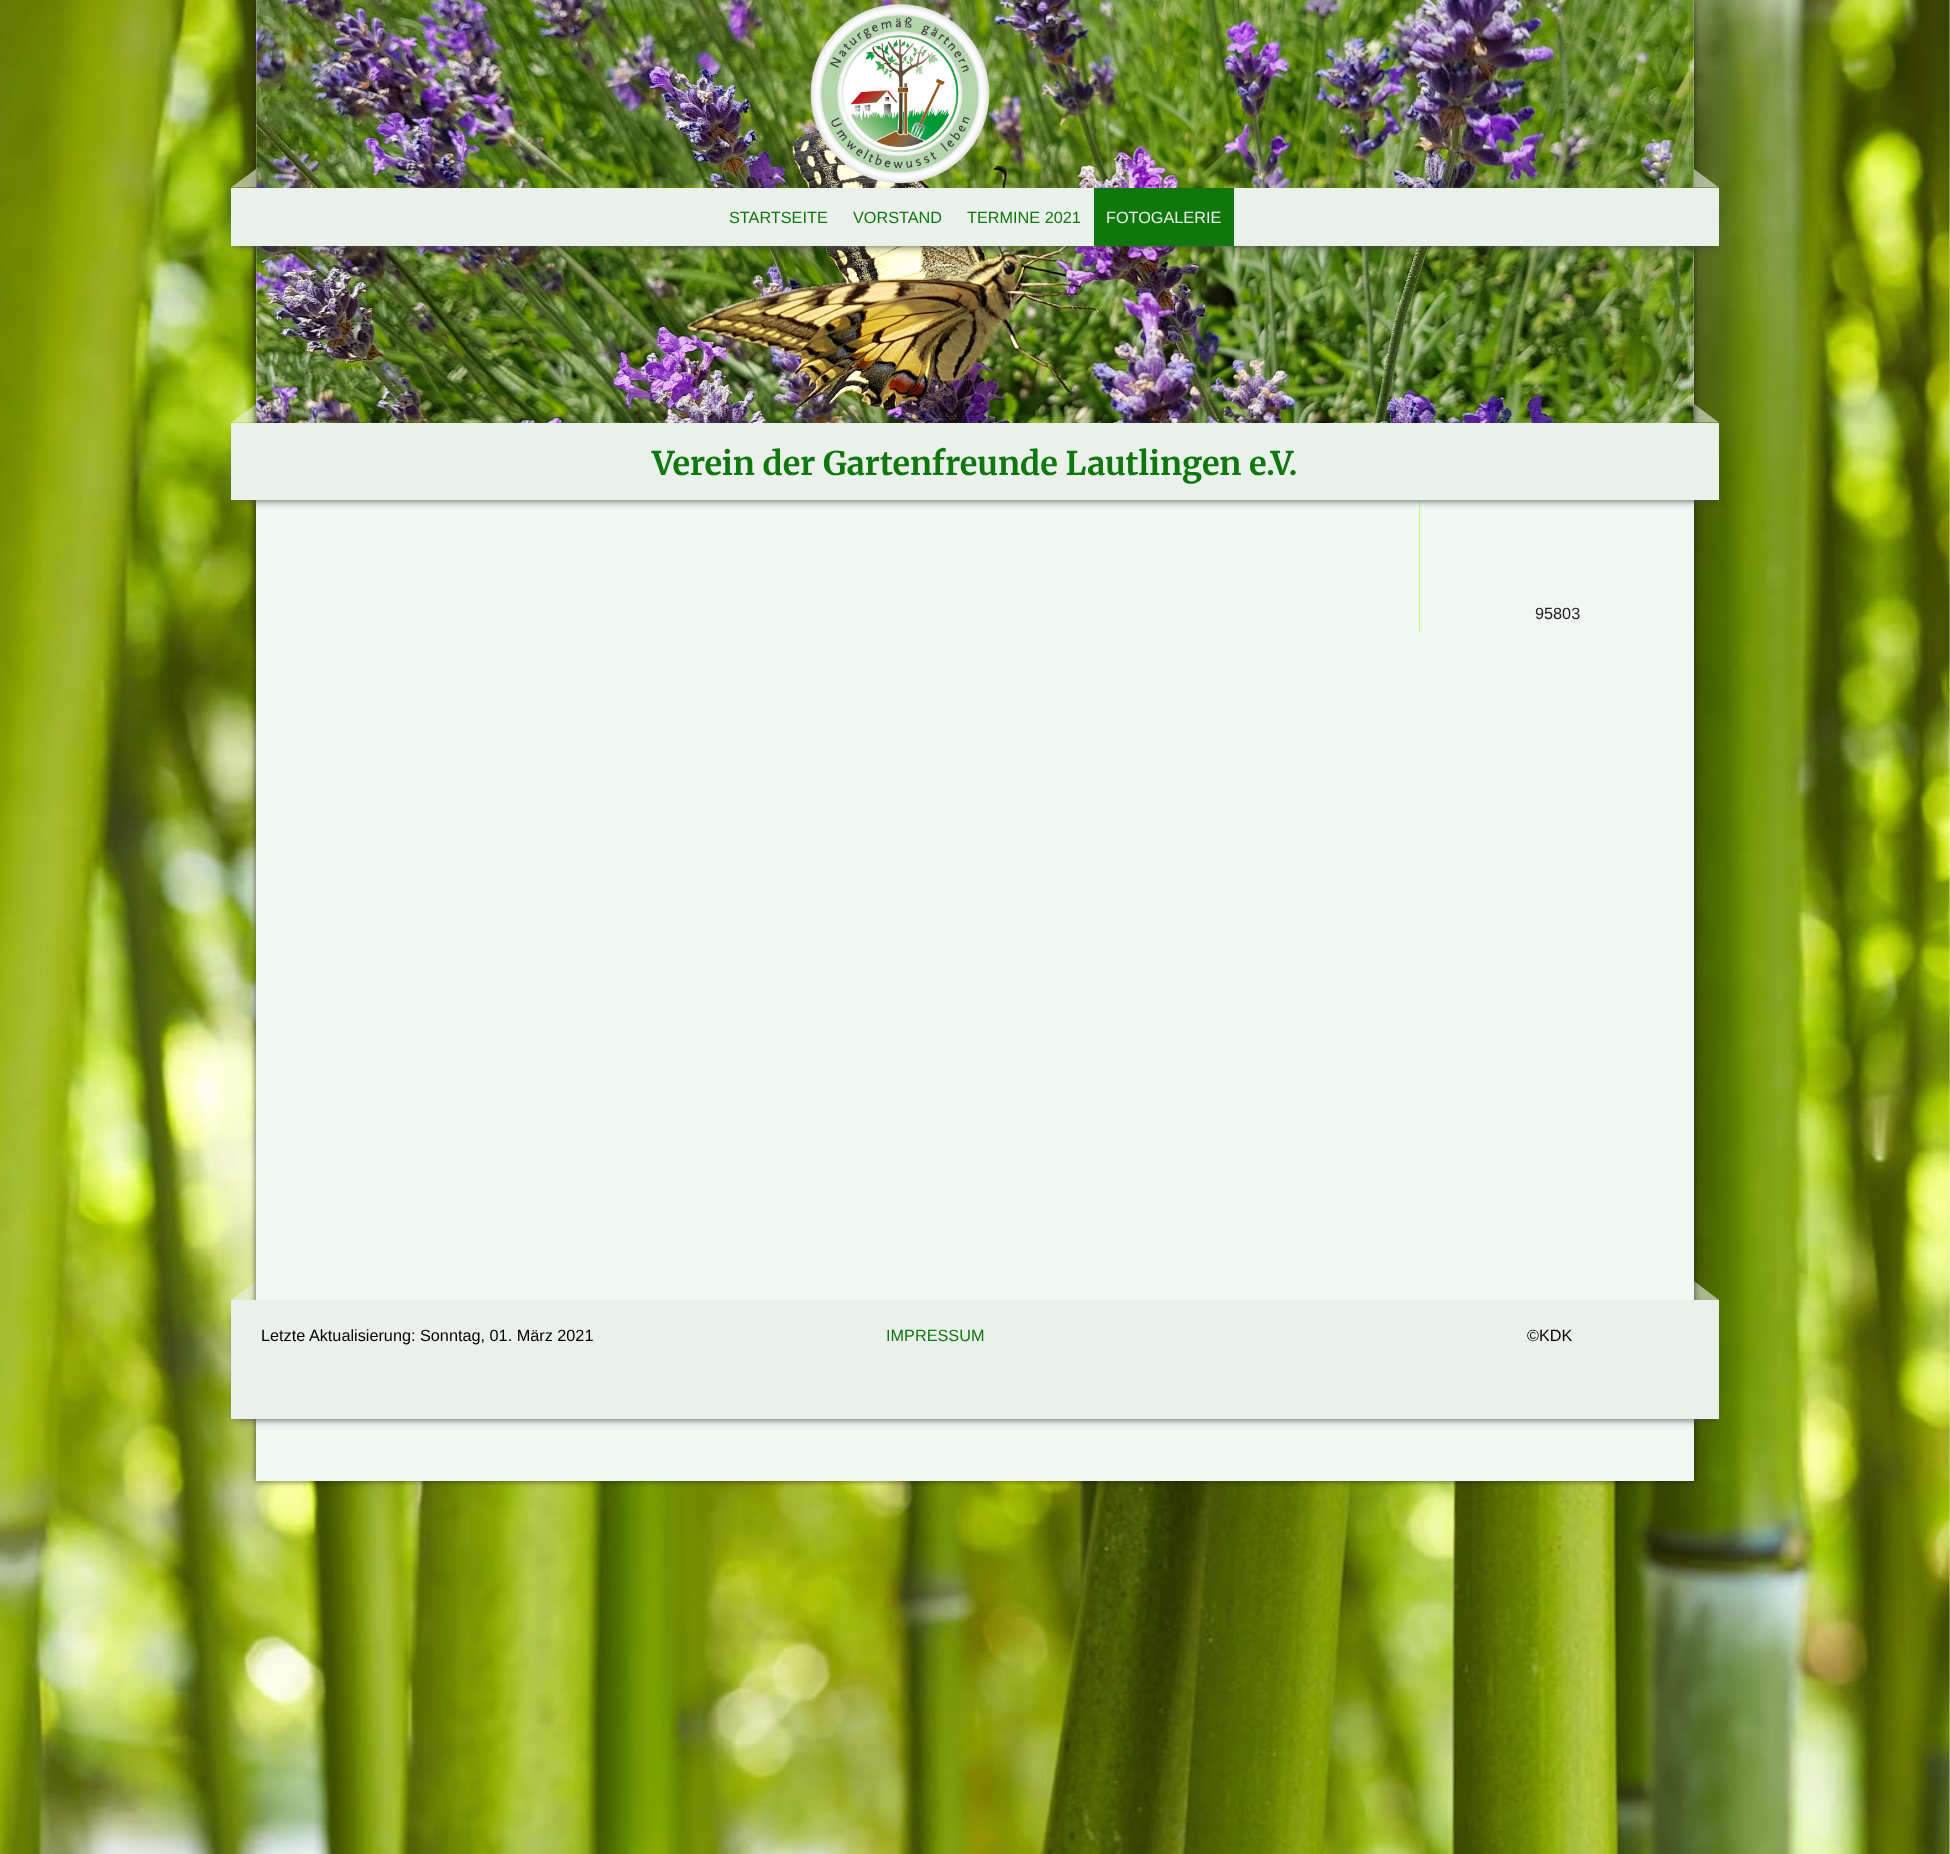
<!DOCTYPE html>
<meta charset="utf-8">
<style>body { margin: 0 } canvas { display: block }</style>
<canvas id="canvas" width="1950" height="1854"></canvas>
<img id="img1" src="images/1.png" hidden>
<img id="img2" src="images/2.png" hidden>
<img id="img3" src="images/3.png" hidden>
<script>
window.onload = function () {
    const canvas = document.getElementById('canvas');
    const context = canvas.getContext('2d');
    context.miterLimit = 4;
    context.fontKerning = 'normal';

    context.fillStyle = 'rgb(250, 250, 250)';
    context.fillRect(0, 0, 1950, 1854);
    context.drawImage(document.getElementById('img1'), 0, 0, 1950, 1854);
    context.fillStyle = 'rgba(233, 241, 234, 0.6)';
    context.beginPath();
    context.moveTo(256, 422.5);
    context.lineTo(231, 422.5);
    context.lineTo(256, 404);
    context.closePath();
    context.fill();
    context.beginPath();
    context.moveTo(1719, 422.5);
    context.lineTo(1694, 422.5);
    context.lineTo(1694, 404);
    context.closePath();
    context.fill();
    context.beginPath();
    context.moveTo(256, 1300);
    context.lineTo(231, 1300);
    context.lineTo(256, 1281);
    context.closePath();
    context.fill();
    context.beginPath();
    context.moveTo(1719, 1300);
    context.lineTo(1694, 1300);
    context.lineTo(1694, 1281);
    context.closePath();
    context.fill();
    context.fillStyle = 'rgba(20, 20, 20, 0.7)';
    context.filter = 'blur(3px)';
    context.beginPath();
    context.rect(256, 0, 1438, 1481);
    context.fill();
    context.filter = 'none';
    context.fillStyle = 'rgb(241, 248, 244)';
    context.fillRect(256, 0, 1438, 1481);
    context.drawImage(document.getElementById('img2'), 256, 0, 1438, 423);
    context.drawImage(document.getElementById('img3'), 810, 4, 180, 180);
    context.fillStyle = 'rgb(68, 68, 68)';
    context.filter = 'blur(4.5px)';
    context.beginPath();
    context.rect(236, 198, 1478, 48);
    context.fill();
    context.filter = 'none';
    context.fillStyle = 'rgb(233, 241, 234)';
    context.fillRect(231, 188, 1488, 58);
    context.fillStyle = 'rgba(233, 241, 234, 0.6)';
    context.beginPath();
    context.moveTo(256, 187.5);
    context.lineTo(231, 187.5);
    context.lineTo(256, 169);
    context.closePath();
    context.fill();
    context.beginPath();
    context.moveTo(1719, 187.5);
    context.lineTo(1694, 187.5);
    context.lineTo(1694, 169);
    context.closePath();
    context.fill();
    context.fillStyle = 'rgb(16, 119, 14)';
    context.fillRect(1094, 188, 140, 58);
    context.fillStyle = 'rgb(179, 254, 143)';
    context.fillRect(1419, 500, 1, 133);
    context.fillStyle = 'rgb(68, 68, 68)';
    context.filter = 'blur(4.5px)';
    context.beginPath();
    context.rect(236, 433, 1478, 67);
    context.fill();
    context.filter = 'none';
    context.fillStyle = 'rgb(233, 241, 234)';
    context.fillRect(231, 423, 1488, 77);
    context.fillStyle = 'rgb(68, 68, 68)';
    context.filter = 'blur(4.5px)';
    context.beginPath();
    context.rect(236, 1310, 1478, 109);
    context.fill();
    context.filter = 'none';
    context.fillStyle = 'rgb(233, 241, 234)';
    context.fillRect(231, 1300, 1488, 119);
    context.font = '16.25px Liberation Sans';
    context.fillStyle = 'rgb(16, 119, 14)';
    context.fillText('STARTSEITE', 729, 223);
    context.fillText('VORSTAND', 853, 223);
    context.fillText('TERMINE 2021', 967, 223);
    context.fillStyle = 'rgb(233, 241, 234)';
    context.fillText('FOTOGALERIE', 1106, 223);
    context.font = 'bold 32.5px Merriweather';
    context.fillStyle = 'rgb(16, 119, 14)';
    context.fillText('Verein der Gartenfreunde Lautlingen e.V.', 652, 475);
    context.font = '16.25px Liberation Sans';
    context.fillStyle = 'rgb(34, 32, 32)';
    context.fillText('95803', 1535, 619);
    context.fillStyle = 'rgb(0, 0, 0)';
    context.fillText('Letzte Aktualisierung: Sonntag, 01. März 2021', 261, 1341);
    context.fillStyle = 'rgb(16, 119, 14)';
    context.fillText('IMPRESSUM', 886, 1341);
    context.fillStyle = 'rgb(0, 0, 0)';
    context.fillText('©KDK', 1527, 1341);
};
</script>
